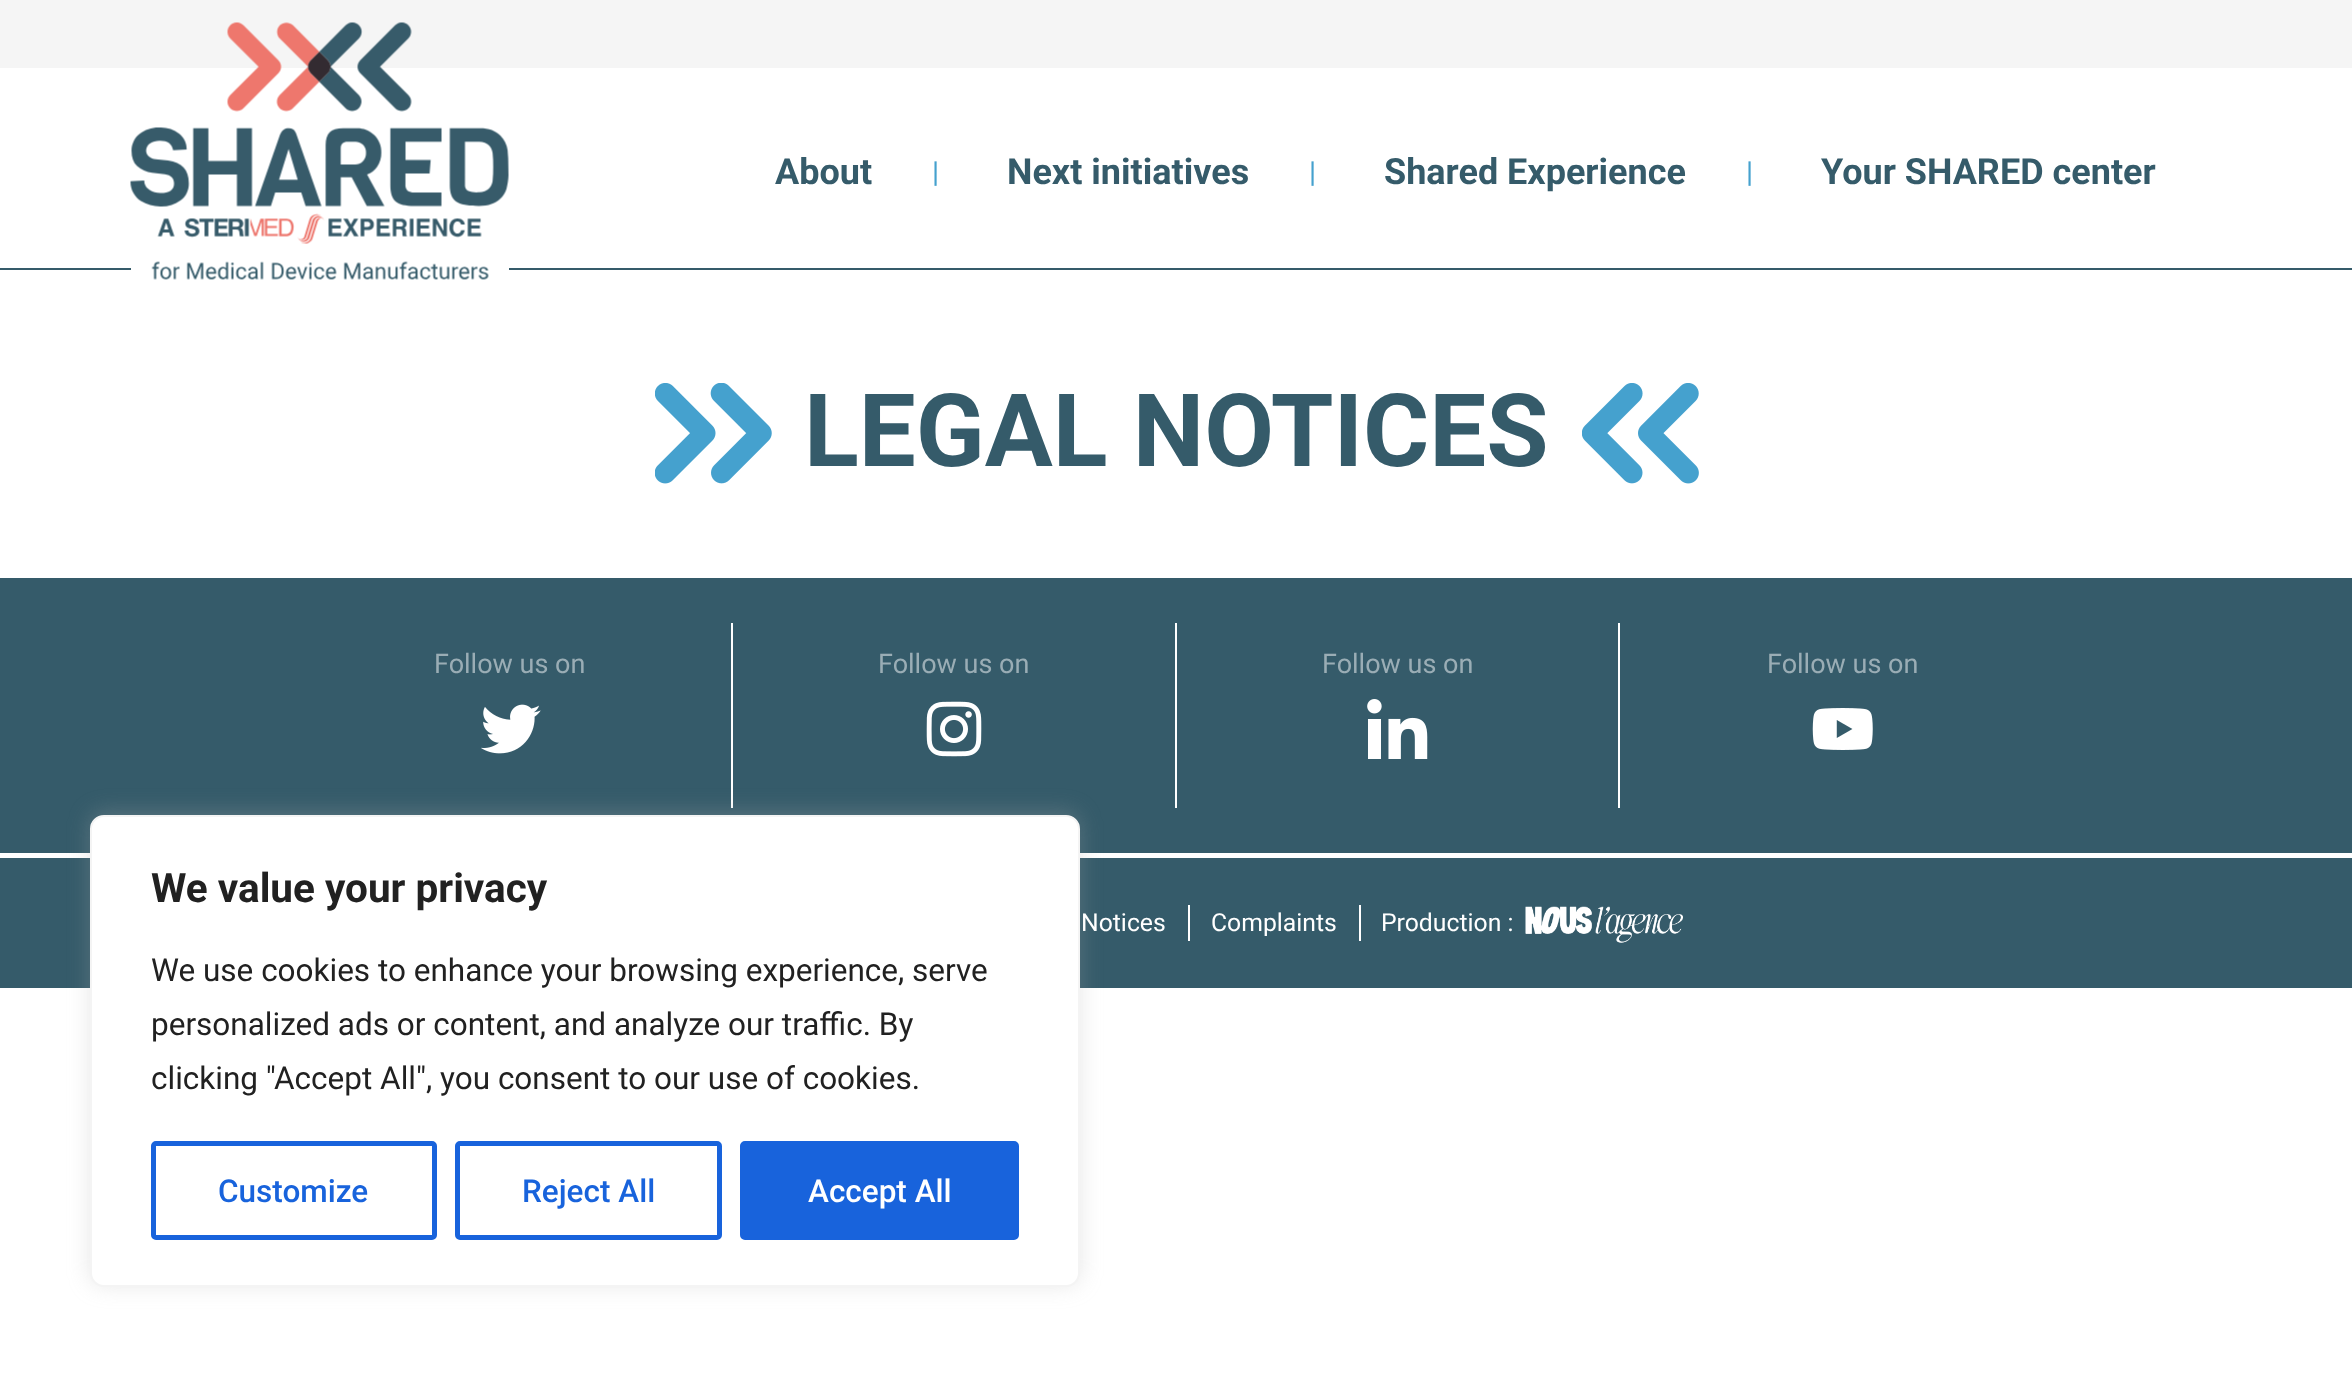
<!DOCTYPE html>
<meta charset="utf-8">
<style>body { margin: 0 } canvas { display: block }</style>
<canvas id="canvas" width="2352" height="1375"></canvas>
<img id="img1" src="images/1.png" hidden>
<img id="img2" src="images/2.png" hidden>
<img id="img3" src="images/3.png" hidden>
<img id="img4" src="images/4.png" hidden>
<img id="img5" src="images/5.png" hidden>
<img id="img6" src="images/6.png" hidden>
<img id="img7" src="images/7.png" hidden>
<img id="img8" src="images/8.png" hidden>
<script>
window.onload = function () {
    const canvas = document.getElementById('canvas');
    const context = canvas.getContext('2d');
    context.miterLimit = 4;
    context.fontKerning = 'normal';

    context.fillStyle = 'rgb(255, 255, 255)';
    context.fillRect(0, 0, 2352, 1375);
    context.fillStyle = 'rgb(53, 91, 106)';
    context.fillRect(0, 268, 2352, 2);
    context.fillStyle = 'rgb(245, 245, 245)';
    context.fillRect(0, 0, 2352, 68);
    context.fillStyle = 'rgb(255, 255, 255)';
    context.fillRect(131, 268, 378, 2);
    context.drawImage(document.getElementById('img1'), 130, 22, 379, 258);
    context.drawImage(document.getElementById('img2'), 655, 383, 117, 101);
    context.drawImage(document.getElementById('img3'), 1582, 383, 117, 101);
    context.fillStyle = 'rgb(53, 91, 106)';
    context.fillRect(0, 578, 2352, 410);
    context.fillStyle = 'rgb(255, 255, 255)';
    context.fillRect(731, 623, 2, 185);
    context.drawImage(document.getElementById('img4'), 481, 704, 60, 50);
    context.fillRect(1175, 623, 2, 185);
    context.drawImage(document.getElementById('img5'), 926, 701, 56, 56);
    context.fillRect(1618, 623, 2, 185);
    context.drawImage(document.getElementById('img6'), 1367, 699, 61, 60);
    context.drawImage(document.getElementById('img7'), 1812, 708, 61, 42);
    context.fillRect(0, 853, 2352, 5);
    context.fillRect(1188, 905, 2, 36);
    context.fillRect(1359, 905, 2, 36);
    context.drawImage(document.getElementById('img8'), 1525, 906, 158, 37);
    context.fillStyle = 'rgba(172, 171, 171, 0.3)';
    context.filter = 'blur(11px)';
    context.beginPath();
    context.roundRect(90, 812, 990, 473, 14);
    context.fill();
    context.filter = 'none';
    context.fillStyle = 'rgb(255, 255, 255)';
    context.beginPath();
    context.roundRect(91, 816, 988, 470, 13);
    context.fill();
    context.strokeStyle = 'rgb(244, 244, 244)';
    context.lineWidth = 2;
    context.stroke();
    context.beginPath();
    context.roundRect(153.5, 1143.5, 281, 94, 2.5);
    context.strokeStyle = 'rgb(24, 99, 220)';
    context.lineWidth = 5;
    context.stroke();
    context.beginPath();
    context.roundRect(457.5, 1143.5, 262, 94, 2.5);
    context.stroke();
    context.fillStyle = 'rgb(24, 99, 220)';
    context.beginPath();
    context.roundRect(742.5, 1143.5, 274, 94, 2.5);
    context.fill();
    context.stroke();
    context.font = 'bold 36px Roboto';
    context.fillStyle = 'rgb(53, 91, 106)';
    context.fillText('About', 775, 184);
    context.font = '29px Roboto';
    context.fillStyle = 'rgb(69, 161, 206)';
    context.fillText('|', 932, 182);
    context.font = 'bold 36px Roboto';
    context.fillStyle = 'rgb(53, 91, 106)';
    context.fillText('Next initiatives', 1007, 184);
    context.font = '29px Roboto';
    context.fillStyle = 'rgb(69, 161, 206)';
    context.fillText('|', 1309, 182);
    context.font = 'bold 36px Roboto';
    context.fillStyle = 'rgb(53, 91, 106)';
    context.fillText('Shared Experience', 1384, 184);
    context.font = '29px Roboto';
    context.fillStyle = 'rgb(69, 161, 206)';
    context.fillText('|', 1746, 182);
    context.font = 'bold 36px Roboto';
    context.fillStyle = 'rgb(53, 91, 106)';
    context.fillText('Your SHARED center', 1821, 184);
    context.font = 'bold 101.25px Roboto';
    context.fillText('LEGAL NOTICES', 804, 466);
    context.font = '27px Roboto';
    context.fillStyle = 'rgb(154, 173, 181)';
    context.fillText('Follow us on', 434, 673);
    context.fillText('Follow us on', 878, 673);
    context.fillText('Follow us on', 1322, 673);
    context.fillText('Follow us on', 1767, 673);
    context.font = '24.75px Roboto';
    context.fillStyle = 'rgb(255, 255, 255)';
    context.fillText('Notices', 1081, 931);
    context.fillText('Complaints', 1211, 931);
    context.fillText('Production :', 1381, 931);
    context.font = 'bold 40.5px Roboto';
    context.fillStyle = 'rgb(33, 33, 33)';
    context.fillText('We value your privacy', 151, 902);
    context.font = '31.5px Roboto';
    context.fillText('We use cookies to enhance your browsing experience, serve', 151, 981);
    context.fillText('personalized ads or content, and analyze our traffic. By', 151, 1035);
    context.fillText('clicking "Accept All", you consent to our use of cookies.', 151, 1089);
    context.font = '500 31.5px Roboto';
    context.fillStyle = 'rgb(24, 99, 220)';
    context.fillText('Customize', 218, 1202);
    context.fillText('Reject All', 522, 1202);
    context.fillStyle = 'rgb(255, 255, 255)';
    context.fillText('Accept All', 808, 1202);
};
</script>
